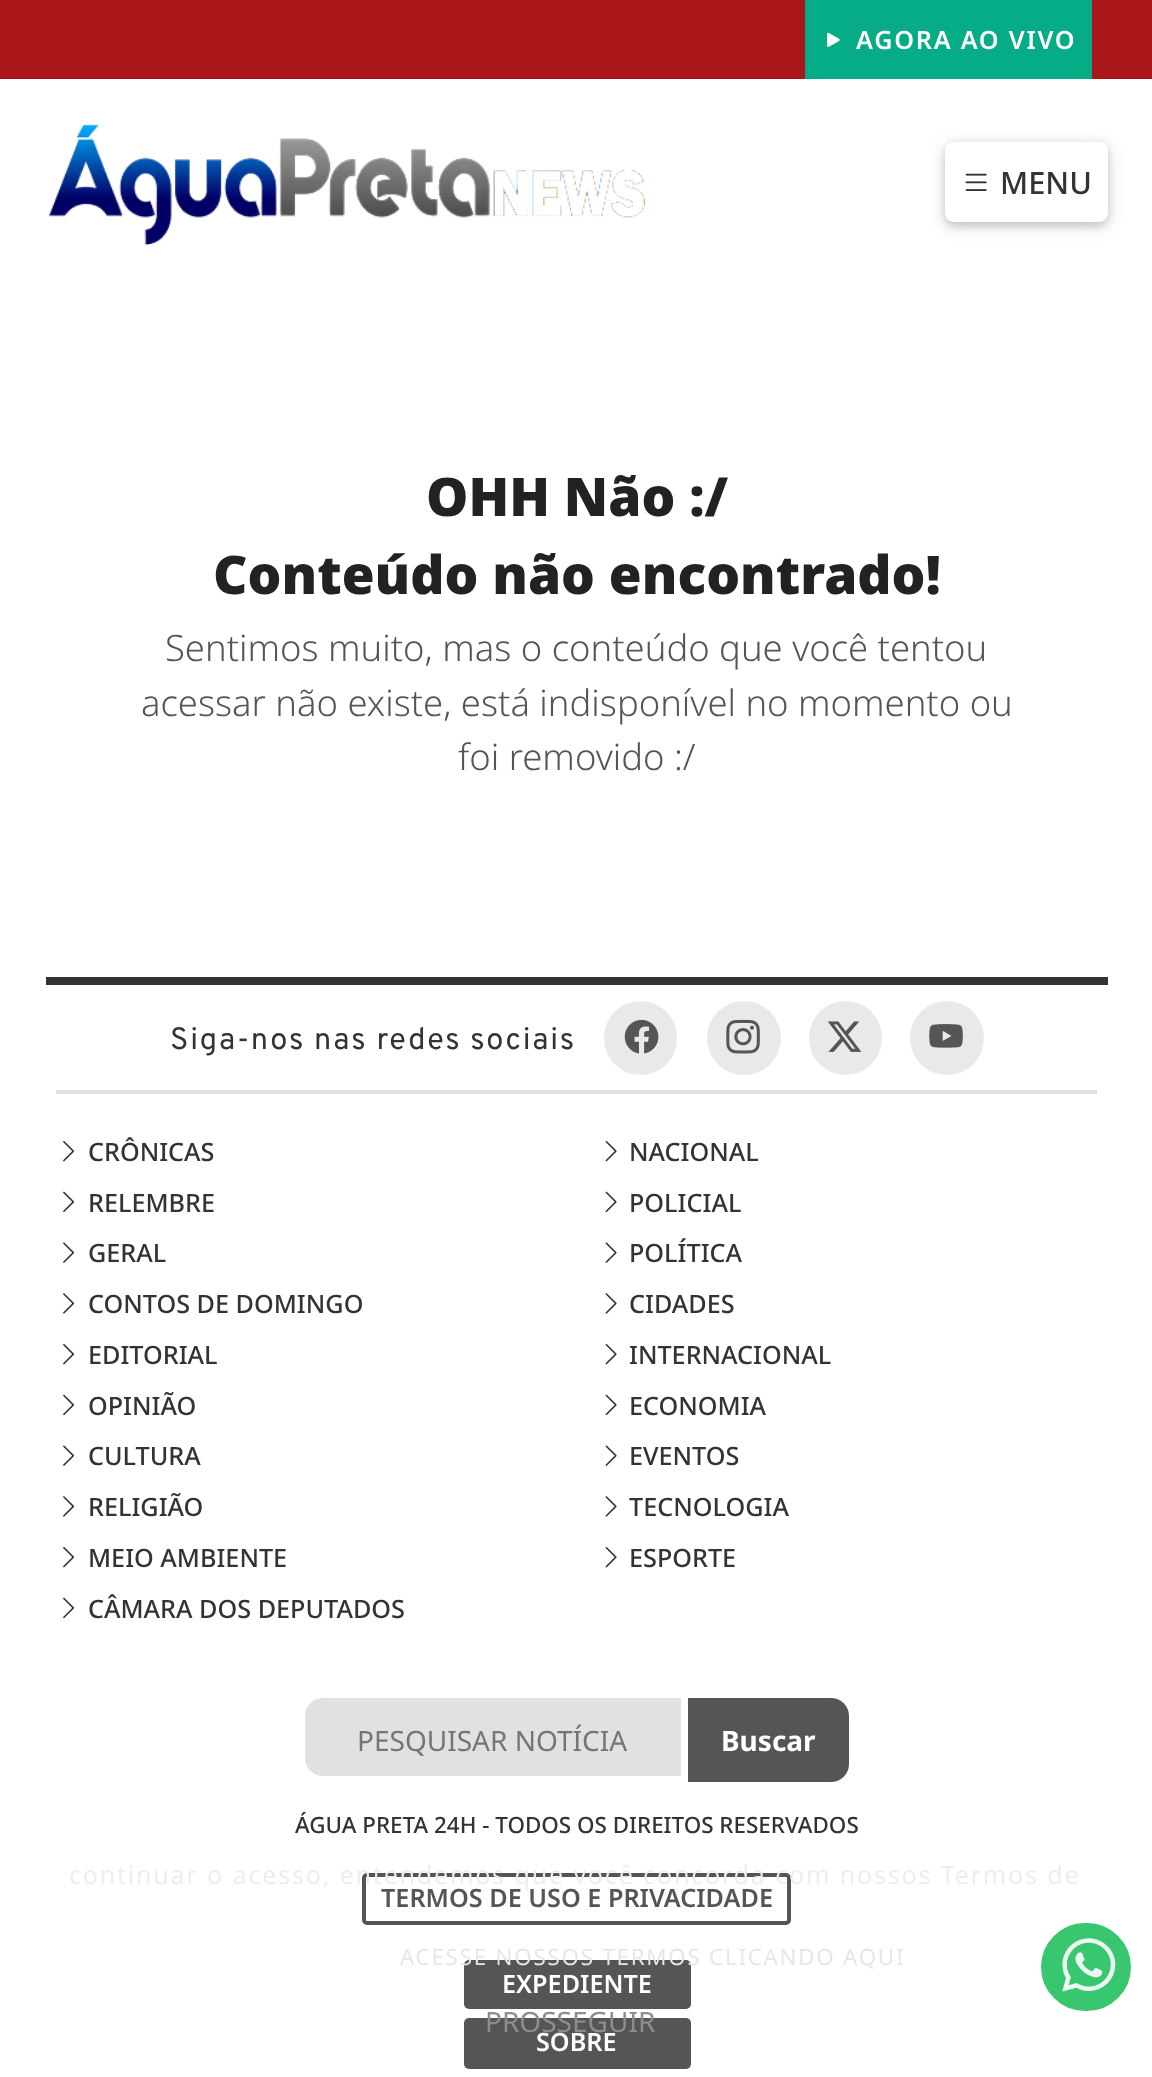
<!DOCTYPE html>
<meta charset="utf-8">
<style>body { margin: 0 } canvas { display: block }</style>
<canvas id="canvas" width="1152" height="2077"></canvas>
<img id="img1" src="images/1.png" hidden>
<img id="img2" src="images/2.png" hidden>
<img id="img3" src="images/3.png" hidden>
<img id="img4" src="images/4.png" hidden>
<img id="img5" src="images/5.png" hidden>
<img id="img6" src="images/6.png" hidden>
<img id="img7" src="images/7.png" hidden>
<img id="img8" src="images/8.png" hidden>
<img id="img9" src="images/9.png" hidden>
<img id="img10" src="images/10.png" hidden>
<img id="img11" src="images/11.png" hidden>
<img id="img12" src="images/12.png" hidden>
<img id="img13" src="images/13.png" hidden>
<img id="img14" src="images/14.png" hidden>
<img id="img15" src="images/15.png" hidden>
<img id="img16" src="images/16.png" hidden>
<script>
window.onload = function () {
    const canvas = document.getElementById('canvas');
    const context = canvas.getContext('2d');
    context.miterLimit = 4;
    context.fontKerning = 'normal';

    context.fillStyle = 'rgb(255, 255, 255)';
    context.fillRect(0, 0, 1152, 2077);
    context.fillStyle = 'rgb(170, 23, 27)';
    context.fillRect(0, 0, 1152, 79);
    context.fillStyle = 'rgb(6, 172, 133)';
    context.fillRect(805, 0, 287, 79);
    context.drawImage(document.getElementById('img1'), 827, 32, 13, 15);
    context.drawImage(document.getElementById('img2'), 49, 124, 597, 122);
    context.save();
    context.beginPath();
    context.moveTo(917, 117);
    context.lineTo(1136, 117);
    context.lineTo(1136, 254);
    context.lineTo(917, 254);
    context.closePath();
    context.moveTo(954, 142);
    context.lineTo(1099, 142);
    context.bezierCurveTo(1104, 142, 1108, 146, 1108, 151);
    context.lineTo(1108, 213);
    context.bezierCurveTo(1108, 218, 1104, 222, 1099, 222);
    context.lineTo(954, 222);
    context.bezierCurveTo(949, 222, 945, 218, 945, 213);
    context.lineTo(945, 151);
    context.bezierCurveTo(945, 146, 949, 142, 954, 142);
    context.closePath();
    context.clip('evenodd');
    context.fillStyle = 'rgba(0, 0, 0, 0.12)';
    context.filter = 'blur(9px)';
    context.beginPath();
    context.roundRect(945, 145, 163, 81, 9);
    context.fill();
    context.filter = 'none';
    context.restore();
    context.save();
    context.beginPath();
    context.moveTo(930, 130);
    context.lineTo(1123, 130);
    context.lineTo(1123, 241);
    context.lineTo(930, 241);
    context.closePath();
    context.moveTo(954, 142);
    context.lineTo(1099, 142);
    context.bezierCurveTo(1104, 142, 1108, 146, 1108, 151);
    context.lineTo(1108, 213);
    context.bezierCurveTo(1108, 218, 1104, 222, 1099, 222);
    context.lineTo(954, 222);
    context.bezierCurveTo(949, 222, 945, 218, 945, 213);
    context.lineTo(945, 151);
    context.bezierCurveTo(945, 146, 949, 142, 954, 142);
    context.closePath();
    context.clip('evenodd');
    context.fillStyle = 'rgba(0, 0, 0, 0.16)';
    context.filter = 'blur(4.5px)';
    context.beginPath();
    context.roundRect(945, 145, 163, 81, 9);
    context.fill();
    context.filter = 'none';
    context.restore();
    context.drawImage(document.getElementById('img3'), 965, 173, 22, 18);
    context.fillStyle = 'rgb(51, 51, 51)';
    context.fillRect(46, 977, 1062, 8);
    context.fillStyle = 'rgb(225, 225, 225)';
    context.fillRect(56, 1090, 1041, 4);
    context.fillStyle = 'rgb(233, 233, 233)';
    context.beginPath();
    context.roundRect(604, 1001, 73, 74, 36.5);
    context.fill();
    context.drawImage(document.getElementById('img4'), 624, 1019, 35, 35);
    context.beginPath();
    context.arc(744, 1038, 37, 0, 2 * Math.PI);
    context.fill();
    context.drawImage(document.getElementById('img5'), 726, 1019, 34, 35);
    context.beginPath();
    context.roundRect(809, 1001, 73, 74, 36.5);
    context.fill();
    context.drawImage(document.getElementById('img6'), 827, 1021, 35, 31);
    context.beginPath();
    context.arc(947, 1038, 37, 0, 2 * Math.PI);
    context.fill();
    context.drawImage(document.getElementById('img7'), 929, 1024, 34, 24);
    context.drawImage(document.getElementById('img8'), 63, 1141, 12, 21);
    context.drawImage(document.getElementById('img9'), 605, 1140, 12, 22);
    context.drawImage(document.getElementById('img10'), 63, 1191, 12, 22);
    context.drawImage(document.getElementById('img11'), 605, 1191, 12, 22);
    context.drawImage(document.getElementById('img12'), 63, 1242, 12, 21);
    context.drawImage(document.getElementById('img13'), 605, 1242, 12, 21);
    context.drawImage(document.getElementById('img14'), 63, 1293, 12, 21);
    context.drawImage(document.getElementById('img15'), 605, 1293, 12, 21);
    context.drawImage(document.getElementById('img8'), 63, 1344, 12, 21);
    context.drawImage(document.getElementById('img9'), 605, 1343, 12, 22);
    context.drawImage(document.getElementById('img10'), 63, 1394, 12, 22);
    context.drawImage(document.getElementById('img11'), 605, 1394, 12, 22);
    context.drawImage(document.getElementById('img12'), 63, 1445, 12, 21);
    context.drawImage(document.getElementById('img13'), 605, 1445, 12, 21);
    context.drawImage(document.getElementById('img14'), 63, 1496, 12, 21);
    context.drawImage(document.getElementById('img15'), 605, 1496, 12, 21);
    context.drawImage(document.getElementById('img8'), 63, 1547, 12, 21);
    context.drawImage(document.getElementById('img9'), 605, 1546, 12, 22);
    context.drawImage(document.getElementById('img10'), 63, 1597, 12, 22);
    context.fillStyle = 'rgb(225, 225, 225)';
    context.beginPath();
    context.roundRect(305, 1698, 376, 78, [18, 0, 0, 18]);
    context.fill();
    context.fillStyle = 'rgb(85, 85, 85)';
    context.beginPath();
    context.roundRect(688, 1698, 161, 84, [0, 18, 18, 0]);
    context.fill();
    context.beginPath();
    context.roundRect(364, 1875, 425, 48, 3);
    context.strokeStyle = 'rgb(85, 85, 85)';
    context.lineWidth = 4;
    context.stroke();
    context.beginPath();
    context.roundRect(464, 1960, 227, 49, 5);
    context.fill();
    context.beginPath();
    context.roundRect(464, 2018, 227, 51, 5);
    context.fill();
    context.fillStyle = 'rgb(56, 199, 110)';
    context.beginPath();
    context.roundRect(1038.5, 1920.5, 95, 93, 46.5);
    context.fill();
    context.strokeStyle = 'rgb(255, 255, 255)';
    context.lineWidth = 5;
    context.stroke();
    context.drawImage(document.getElementById('img16'), 1062, 1938, 54, 54);
    context.letterSpacing = '1.75px';
    context.font = '600 25.2px Noto Sans';
    context.fillStyle = 'rgb(255, 255, 255)';
    context.fillText('AGORA AO VIVO', 856, 49);
    context.letterSpacing = '0px';
    context.font = '500 30.75px Noto Sans';
    context.fillStyle = 'rgb(51, 51, 51)';
    context.fillText('MENU', 1000, 194);
    context.font = '900 53.25px Noto Sans';
    context.fillStyle = 'rgb(34, 34, 34)';
    context.fillText('OHH Não :/', 426, 516);
    context.fillText('Conteúdo não encontrado!', 213, 594);
    context.font = '300 36.4px Noto Sans';
    context.fillStyle = 'rgb(85, 85, 85)';
    context.fillText('Sentimos muito, mas o conteúdo que você tentou', 165, 661);
    context.fillText('acessar não existe, está indisponível no momento ou', 141, 716);
    context.fillText('foi removido :/', 458, 770);
    context.letterSpacing = '1.75px';
    context.font = '30.75px Overpass';
    context.fillStyle = 'rgb(51, 51, 51)';
    context.fillText('Siga-nos nas redes sociais', 170, 1049);
    context.letterSpacing = '0px';
    context.font = '500 25.2px Noto Sans';
    context.fillText('CRÔNICAS', 88, 1161);
    context.fillText('NACIONAL', 629, 1161);
    context.fillText('RELEMBRE', 88, 1212);
    context.fillText('POLICIAL', 629, 1212);
    context.fillText('GERAL', 88, 1262);
    context.fillText('POLÍTICA', 629, 1262);
    context.fillText('CONTOS DE DOMINGO', 88, 1313);
    context.fillText('CIDADES', 629, 1313);
    context.fillText('EDITORIAL', 88, 1364);
    context.fillText('INTERNACIONAL', 629, 1364);
    context.fillText('OPINIÃO', 88, 1415);
    context.fillText('ECONOMIA', 629, 1415);
    context.fillText('CULTURA', 88, 1465);
    context.fillText('EVENTOS', 629, 1465);
    context.fillText('RELIGIÃO', 88, 1516);
    context.fillText('TECNOLOGIA', 629, 1516);
    context.fillText('MEIO AMBIENTE', 88, 1567);
    context.fillText('ESPORTE', 629, 1567);
    context.fillText('CÂMARA DOS DEPUTADOS', 88, 1618);
    context.font = '28px Noto Sans';
    context.fillStyle = 'rgb(117, 117, 117)';
    context.fillText('PESQUISAR NOTÍCIA', 357, 1751);
    context.font = 'bold 28px Noto Sans';
    context.fillStyle = 'rgb(255, 255, 255)';
    context.fillText('Buscar', 721, 1751);
    context.font = '500 22.4px Noto Sans';
    context.fillStyle = 'rgb(51, 51, 51)';
    context.fillText('ÁGUA PRETA 24H - TODOS OS DIREITOS RESERVADOS', 295, 1833);
    context.font = '600 25.2px Noto Sans';
    context.fillStyle = 'rgb(85, 85, 85)';
    context.fillText('TERMOS DE USO E PRIVACIDADE', 381, 1907);
    context.fillStyle = 'rgb(255, 255, 255)';
    context.fillText('EXPEDIENTE', 502, 1993);
    context.fillText('SOBRE', 536, 2051);
    context.letterSpacing = '1.75px';
    context.wordSpacing = '0.25px';
    context.font = '25.2px "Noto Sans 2"';
    context.fillStyle = 'rgb(237, 237, 237)';
    context.fillText('continuar o acesso, entendemos que você concorda com nossos Termos de', 69, 1884);
    context.wordSpacing = '0px';
    context.font = '22.4px "Noto Sans 2"';
    context.fillStyle = 'rgb(230, 230, 230)';
    context.fillText('ACESSE NOSSOS TERMOS CLICANDO AQUI', 400, 1965);
    context.letterSpacing = '0px';
    context.font = '28px Noto Sans';
    context.fillStyle = 'rgb(141, 141, 141)';
    context.fillText('PROSSEGUIR', 485, 2032);
};
</script>
